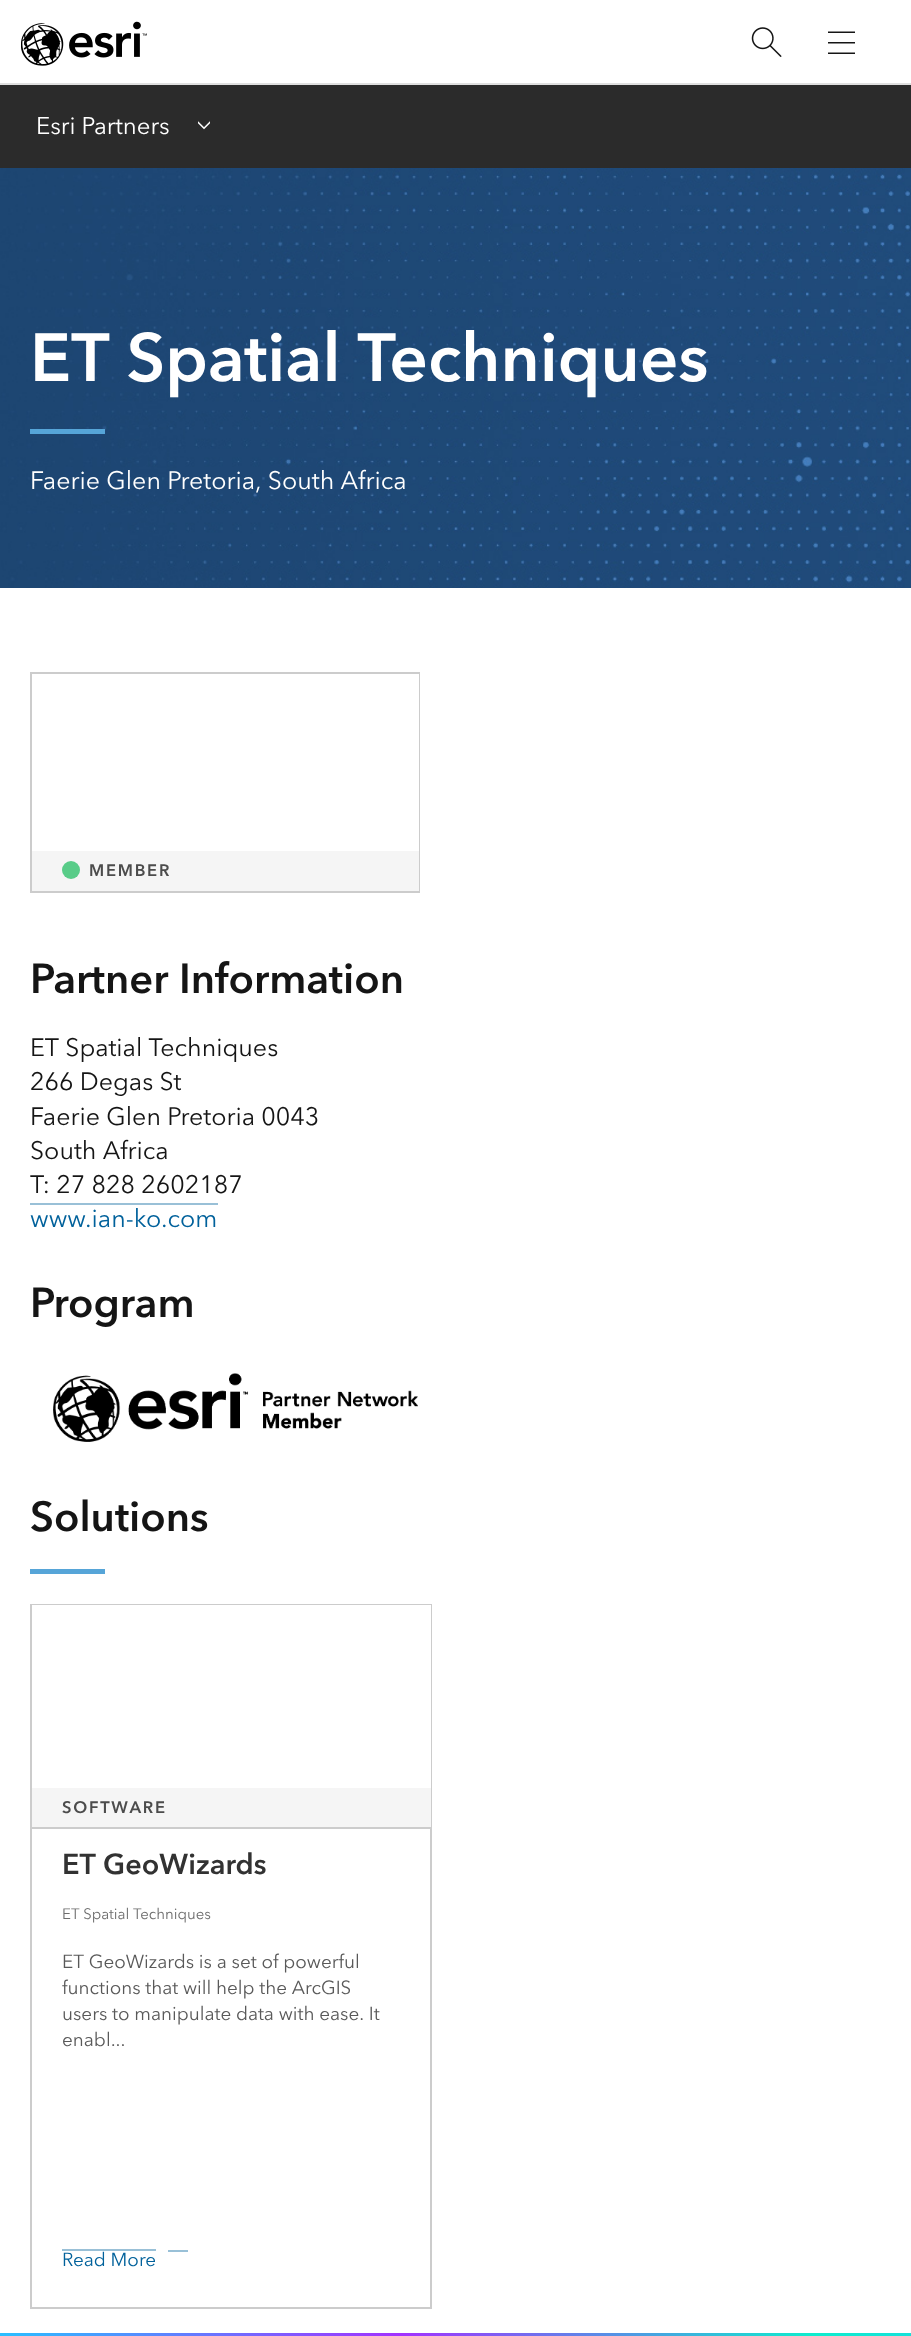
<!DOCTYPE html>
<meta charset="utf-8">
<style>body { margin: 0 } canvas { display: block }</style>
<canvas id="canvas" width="911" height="2336"></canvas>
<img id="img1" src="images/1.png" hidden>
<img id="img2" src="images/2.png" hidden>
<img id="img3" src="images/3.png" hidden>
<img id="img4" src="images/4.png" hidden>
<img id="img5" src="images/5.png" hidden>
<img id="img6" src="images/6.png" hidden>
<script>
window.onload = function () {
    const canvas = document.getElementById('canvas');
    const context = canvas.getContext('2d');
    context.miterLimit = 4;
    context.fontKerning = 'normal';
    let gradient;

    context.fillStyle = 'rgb(255, 255, 255)';
    context.fillRect(0, 0, 911, 2336);
    context.fillStyle = 'rgb(223, 223, 223)';
    context.fillRect(0, 83, 911, 2);
    context.drawImage(document.getElementById('img1'), 21, 21, 126, 45);
    context.drawImage(document.getElementById('img2'), 751, 27, 31, 30);
    context.drawImage(document.getElementById('img3'), 828, 31, 27, 23);
    context.fillStyle = 'rgb(43, 43, 43)';
    context.fillRect(0, 85, 911, 83);
    context.drawImage(document.getElementById('img4'), 198, 121, 12, 9);
    context.drawImage(document.getElementById('img5'), 0, 168, 911, 420);
    context.fillStyle = 'rgb(86, 165, 216)';
    context.fillRect(30, 429, 75, 5);
    context.strokeStyle = 'rgb(204, 204, 204)';
    context.lineWidth = 2;
    context.strokeRect(31, 673, 388, 219);
    context.fillStyle = 'rgb(255, 255, 255)';
    context.fillRect(418, 674, 1, 177);
    context.fillStyle = 'rgb(245, 245, 245)';
    context.fillRect(32, 851, 387, 40);
    context.fillStyle = 'rgb(88, 204, 136)';
    context.beginPath();
    context.arc(71, 870, 9, 0, 2 * Math.PI);
    context.fill();
    context.fillStyle = 'rgb(153, 192, 215)';
    context.fillRect(30, 1203, 188, 2);
    context.drawImage(document.getElementById('img6'), 53, 1373, 365, 69);
    context.fillStyle = 'rgb(86, 165, 216)';
    context.fillRect(30, 1569, 75, 5);
    context.strokeRect(31, 1605, 400, 703);
    context.fillStyle = 'rgb(255, 255, 255)';
    context.fillRect(32, 1605, 399, 183);
    context.fillStyle = 'rgb(245, 245, 245)';
    context.fillRect(32, 1788, 399, 39);
    context.fillStyle = 'rgb(204, 204, 204)';
    context.fillRect(32, 1827, 399, 2);
    context.fillStyle = 'rgb(153, 192, 215)';
    context.fillRect(62, 2249, 94, 2);
    context.fillRect(168, 2250, 20, 2);
    gradient = context.createLinearGradient(0, 2336, 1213, 2336);
    gradient.addColorStop(0, 'rgb(41, 191, 255)');
    gradient.addColorStop(0.33, 'rgb(162, 49, 255)');
    gradient.addColorStop(0.67, 'rgb(13, 236, 205)');
    gradient.addColorStop(1, 'rgb(41, 191, 255)');
    context.fillStyle = gradient;
    context.fillRect(0, 2333, 911, 3);
    context.font = '24px Avenir Next';
    context.fillStyle = 'rgb(255, 255, 255)';
    context.fillText('Esri Partners', 36, 134);
    context.font = 'bold 67.5px Avenir Next';
    context.fillText('ET Spatial Techniques', 30, 381);
    context.font = '25px Avenir Next';
    context.fillText('Faerie Glen Pretoria, South Africa', 30, 489);
    context.letterSpacing = '1.75px';
    context.font = 'bold 16.5px Avenir Next';
    context.fillStyle = 'rgb(76, 76, 76)';
    context.fillText('MEMBER', 89, 876);
    context.letterSpacing = '0px';
    context.font = 'bold 41.75px Avenir Next';
    context.fillStyle = 'rgb(21, 21, 21)';
    context.fillText('Partner Information', 30, 993);
    context.font = '25px Avenir Next';
    context.fillText('ET Spatial Techniques', 30, 1056);
    context.fillText('266 Degas St', 30, 1090);
    context.fillText('Faerie Glen Pretoria 0043', 30, 1125);
    context.fillText('South Africa', 30, 1159);
    context.fillText('T: 27 828 2602187', 30, 1193);
    context.fillStyle = 'rgb(0, 97, 155)';
    context.fillText('www.ian-ko.com', 30, 1227);
    context.font = 'bold 41.75px Avenir Next';
    context.fillStyle = 'rgb(21, 21, 21)';
    context.fillText('Program', 30, 1317);
    context.fillText('Solutions', 30, 1531);
    context.letterSpacing = '1.75px';
    context.font = 'bold 16.5px Avenir Next';
    context.fillStyle = 'rgb(76, 76, 76)';
    context.fillText('SOFTWARE', 62, 1813);
    context.letterSpacing = '0px';
    context.font = 'bold 28.75px Avenir Next';
    context.fillStyle = 'rgb(50, 50, 50)';
    context.fillText('ET GeoWizards', 62, 1874);
    context.font = '15px Avenir Next';
    context.fillStyle = 'rgb(110, 110, 110)';
    context.fillText('ET Spatial Techniques', 62, 1919);
    context.font = '18.9px Avenir Next';
    context.fillStyle = 'rgb(89, 89, 89)';
    context.fillText('ET GeoWizards is a set of powerful', 62, 1968);
    context.fillText('functions that will help the ArcGIS', 62, 1994);
    context.fillText('users to manipulate data with ease. It', 62, 2020);
    context.fillText('enabl...', 62, 2046);
    context.fillStyle = 'rgb(0, 97, 155)';
    context.fillText('Read More', 62, 2266);
};
</script>
